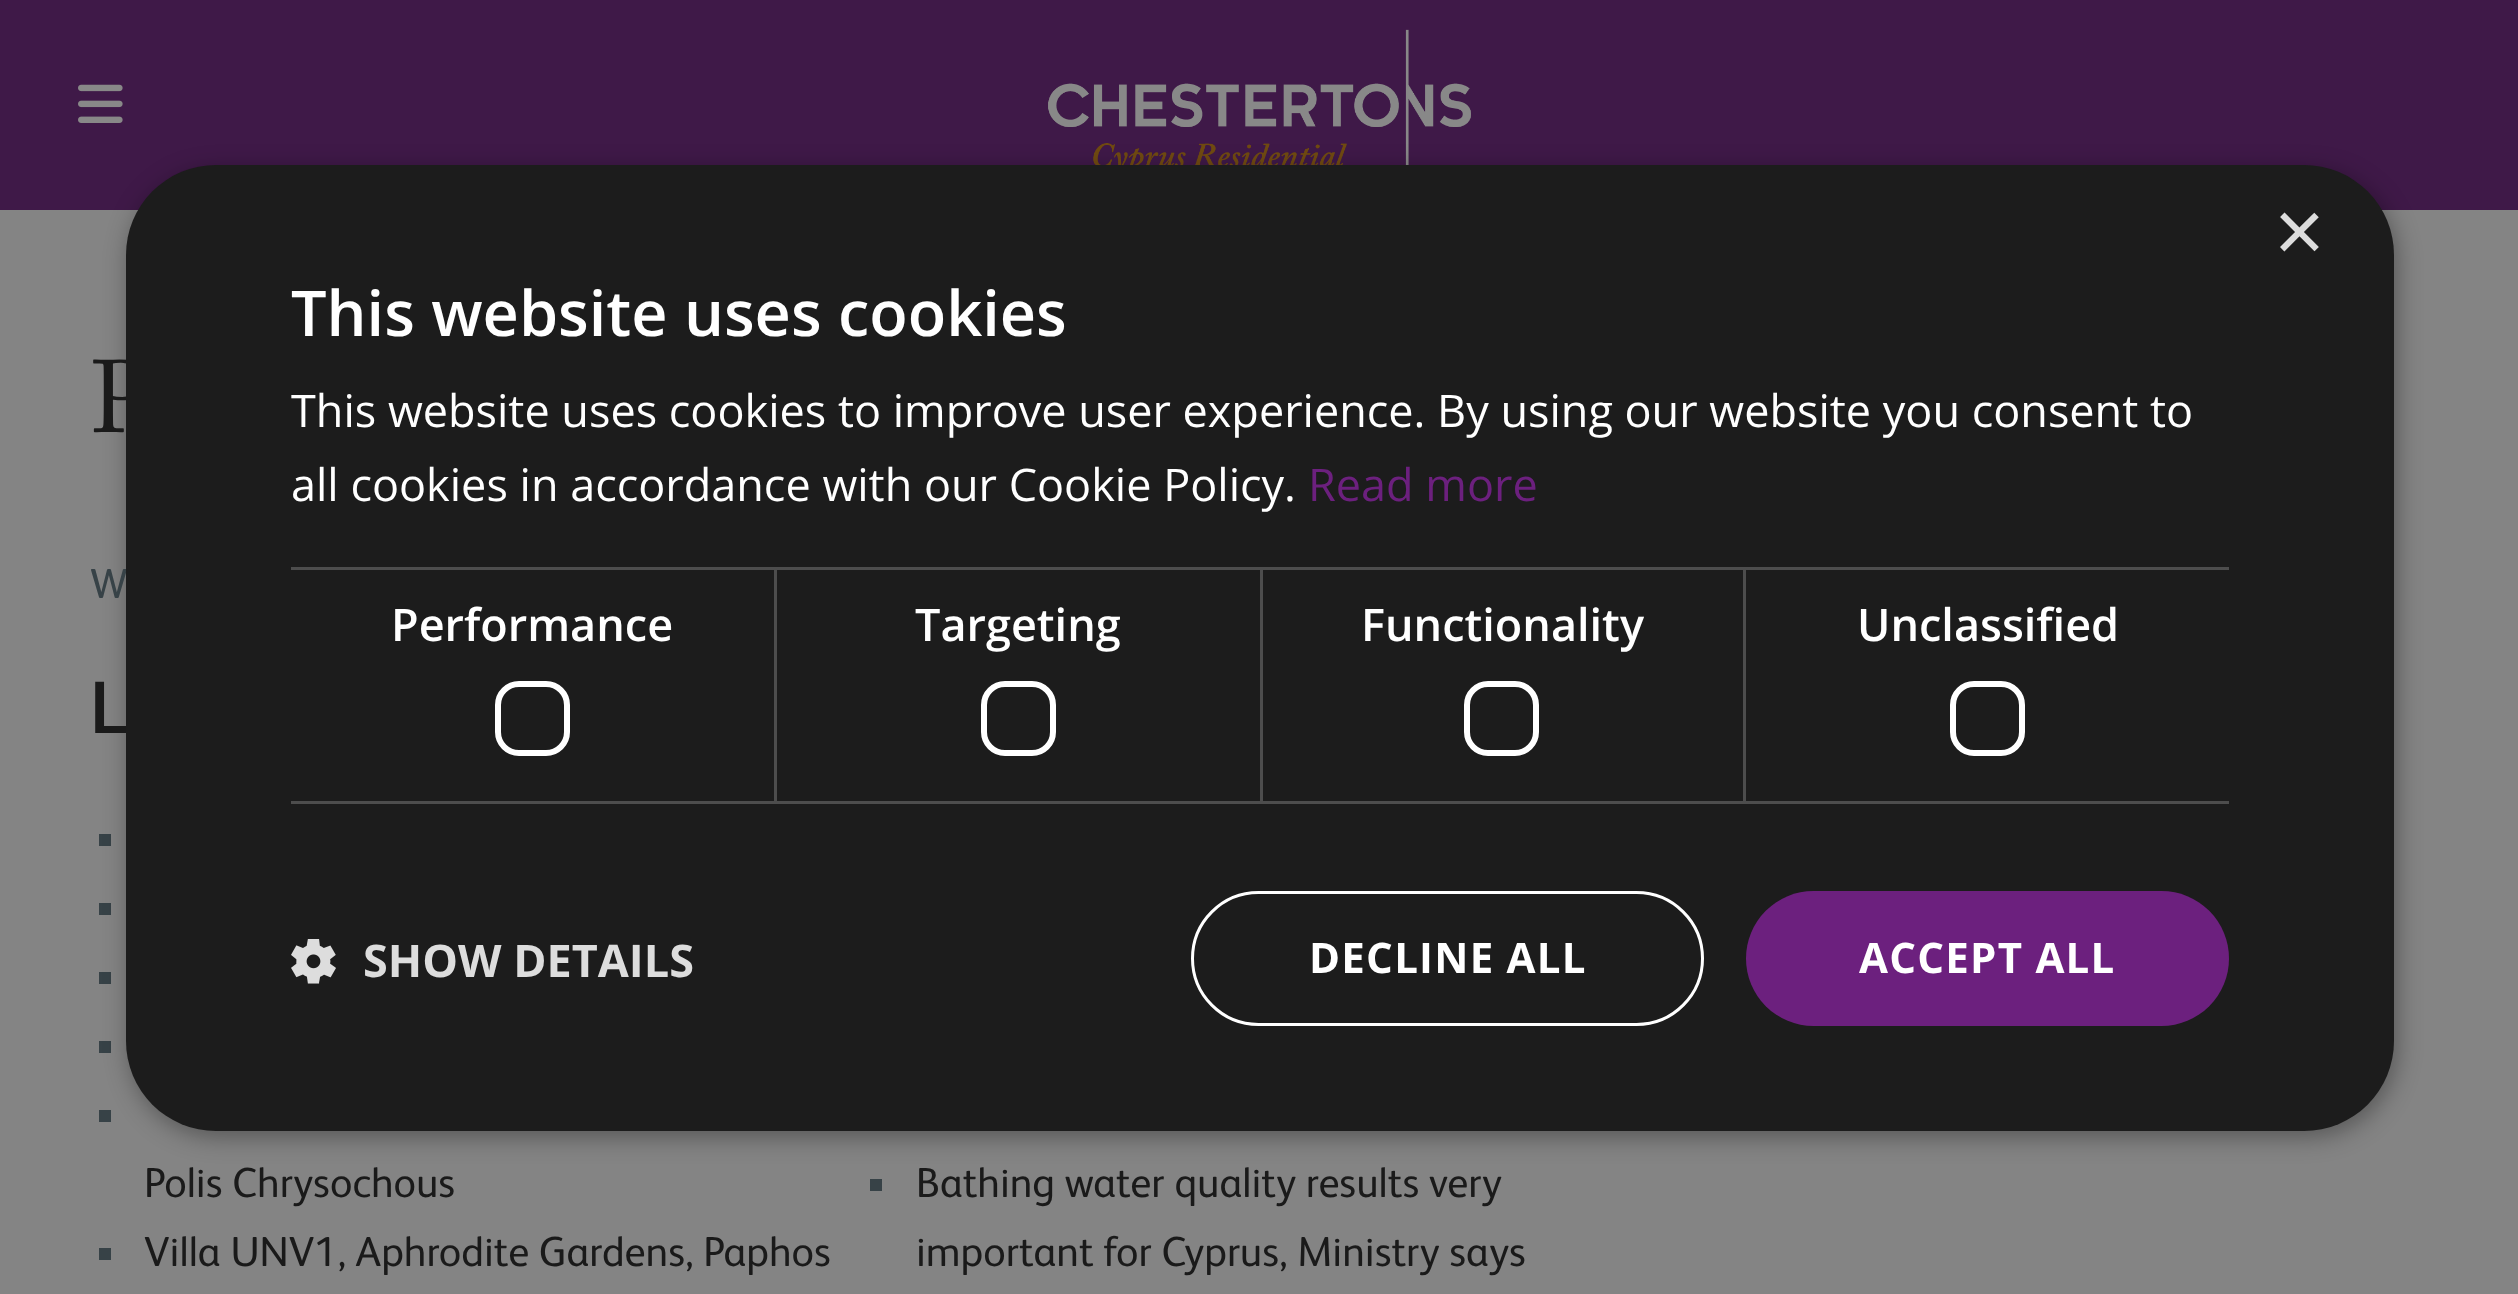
<!DOCTYPE html>
<meta charset="utf-8">
<style>body { margin: 0 } canvas { display: block }</style>
<canvas id="canvas" width="2518" height="1294"></canvas>
<img id="img1" src="images/3.png" hidden>
<img id="img2" src="images/2.png" hidden>
<img id="img3" src="images/1.png" hidden>
<script>
window.onload = function () {
    const canvas = document.getElementById('canvas');
    const context = canvas.getContext('2d');
    context.miterLimit = 4;
    context.fontKerning = 'normal';

    context.fillStyle = 'rgb(132, 132, 132)';
    context.fillRect(0, 0, 2518, 1294);
    context.fillStyle = 'rgb(63, 25, 72)';
    context.fillRect(0, 0, 2518, 210);
    context.drawImage(document.getElementById('img1'), 1048, 29, 423, 136);
    context.fillStyle = 'rgb(55, 66, 71)';
    context.fillRect(99, 834, 12, 12);
    context.fillRect(99, 903, 12, 12);
    context.fillRect(99, 972, 12, 12);
    context.fillRect(99, 1041, 12, 12);
    context.fillRect(99, 1110, 12, 12);
    context.fillStyle = 'rgba(0, 0, 0, 0.35)';
    context.filter = 'blur(12px)';
    context.beginPath();
    context.roundRect(129, 171, 2268, 966, 90);
    context.fill();
    context.filter = 'none';
    context.drawImage(document.getElementById('img2'), 78, 84, 45, 39);
    context.fillStyle = 'rgb(55, 66, 71)';
    context.fillRect(99, 1248, 12, 12);
    context.fillRect(870, 1179, 12, 12);
    context.font = '102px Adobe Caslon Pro';
    context.fillStyle = 'rgb(26, 26, 26)';
    context.fillText('P', 90, 432);
    context.font = '42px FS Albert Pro';
    context.fillStyle = 'rgb(55, 66, 71)';
    context.fillText('W', 90, 598);
    context.font = '500 72px Roboto';
    context.fillStyle = 'rgb(26, 26, 26)';
    context.fillText('L', 90, 733);
    context.fillStyle = 'rgb(28, 28, 28)';
    context.beginPath();
    context.roundRect(126, 165, 2268, 966, 90);
    context.fill();
    context.font = '87px Liberation Sans';
    context.fillStyle = 'rgb(221, 221, 221)';
    context.fillText('×', 2274, 261);
    context.font = '600 63px Open Sans';
    context.fillStyle = 'rgb(255, 255, 255)';
    context.fillText('This website uses cookies', 291, 336);
    context.drawImage(document.getElementById('img3'), 291, 939, 45, 45);
    context.font = 'bold 45px Open Sans';
    context.fillStyle = 'rgb(221, 221, 221)';
    context.fillText('SHOW DETAILS', 363, 977);
    context.beginPath();
    context.roundRect(1953, 684, 69, 69, 21);
    context.strokeStyle = 'rgb(255, 255, 255)';
    context.lineWidth = 6;
    context.stroke();
    context.beginPath();
    context.roundRect(1467, 684, 69, 69, 21);
    context.stroke();
    context.beginPath();
    context.roundRect(984, 684, 69, 69, 21);
    context.stroke();
    context.beginPath();
    context.roundRect(498, 684, 69, 69, 21);
    context.stroke();
    context.beginPath();
    context.roundRect(1192.5, 892.5, 510, 132, 66);
    context.lineWidth = 3;
    context.stroke();
    context.letterSpacing = '1.25px';
    context.font = 'bold 42px Open Sans';
    context.fillStyle = 'rgb(255, 255, 255)';
    context.fillText('DECLINE ALL', 1309, 973);
    context.fillStyle = 'rgb(108, 32, 126)';
    context.beginPath();
    context.roundRect(1746, 891, 483, 135, 67.5);
    context.fill();
    context.fillStyle = 'rgb(255, 255, 255)';
    context.fillText('ACCEPT ALL', 1859, 973);
    context.letterSpacing = '0px';
    context.font = '600 45px Open Sans';
    context.fillText('Unclassified', 1857, 641);
    context.fillText('Functionality', 1361, 641);
    context.fillStyle = 'rgb(77, 77, 77)';
    context.fillRect(291, 567, 1938, 3);
    context.fillRect(1743, 567, 3, 237);
    context.fillRect(1263, 801, 966, 3);
    context.fillStyle = 'rgb(255, 255, 255)';
    context.fillText('Targeting', 915, 641);
    context.fillStyle = 'rgb(77, 77, 77)';
    context.fillRect(1260, 567, 3, 237);
    context.fillRect(777, 801, 486, 3);
    context.fillStyle = 'rgb(255, 255, 255)';
    context.fillText('Performance', 391, 641);
    context.fillStyle = 'rgb(77, 77, 77)';
    context.fillRect(774, 567, 3, 237);
    context.fillRect(291, 801, 486, 3);
    context.font = '45px Open Sans';
    context.fillStyle = 'rgb(108, 32, 126)';
    context.fillText('Read more', 1308, 501);
    context.fillStyle = 'rgb(255, 255, 255)';
    context.fillText('all cookies in accordance with our Cookie Policy.', 291, 501);
    context.fillText('This website uses cookies to improve user experience. By using our website you consent to', 291, 427);
    context.font = '42px FS Albert Pro';
    context.fillStyle = 'rgb(26, 26, 26)';
    context.fillText('Polis Chrysochous', 144, 1197);
    context.fillText('Villa UNV1, Aphrodite Gardens, Paphos', 144, 1266);
    context.fillText('Bathing water quality results very', 916, 1197);
    context.fillText('important for Cyprus, Ministry says', 916, 1266);
};
</script>
